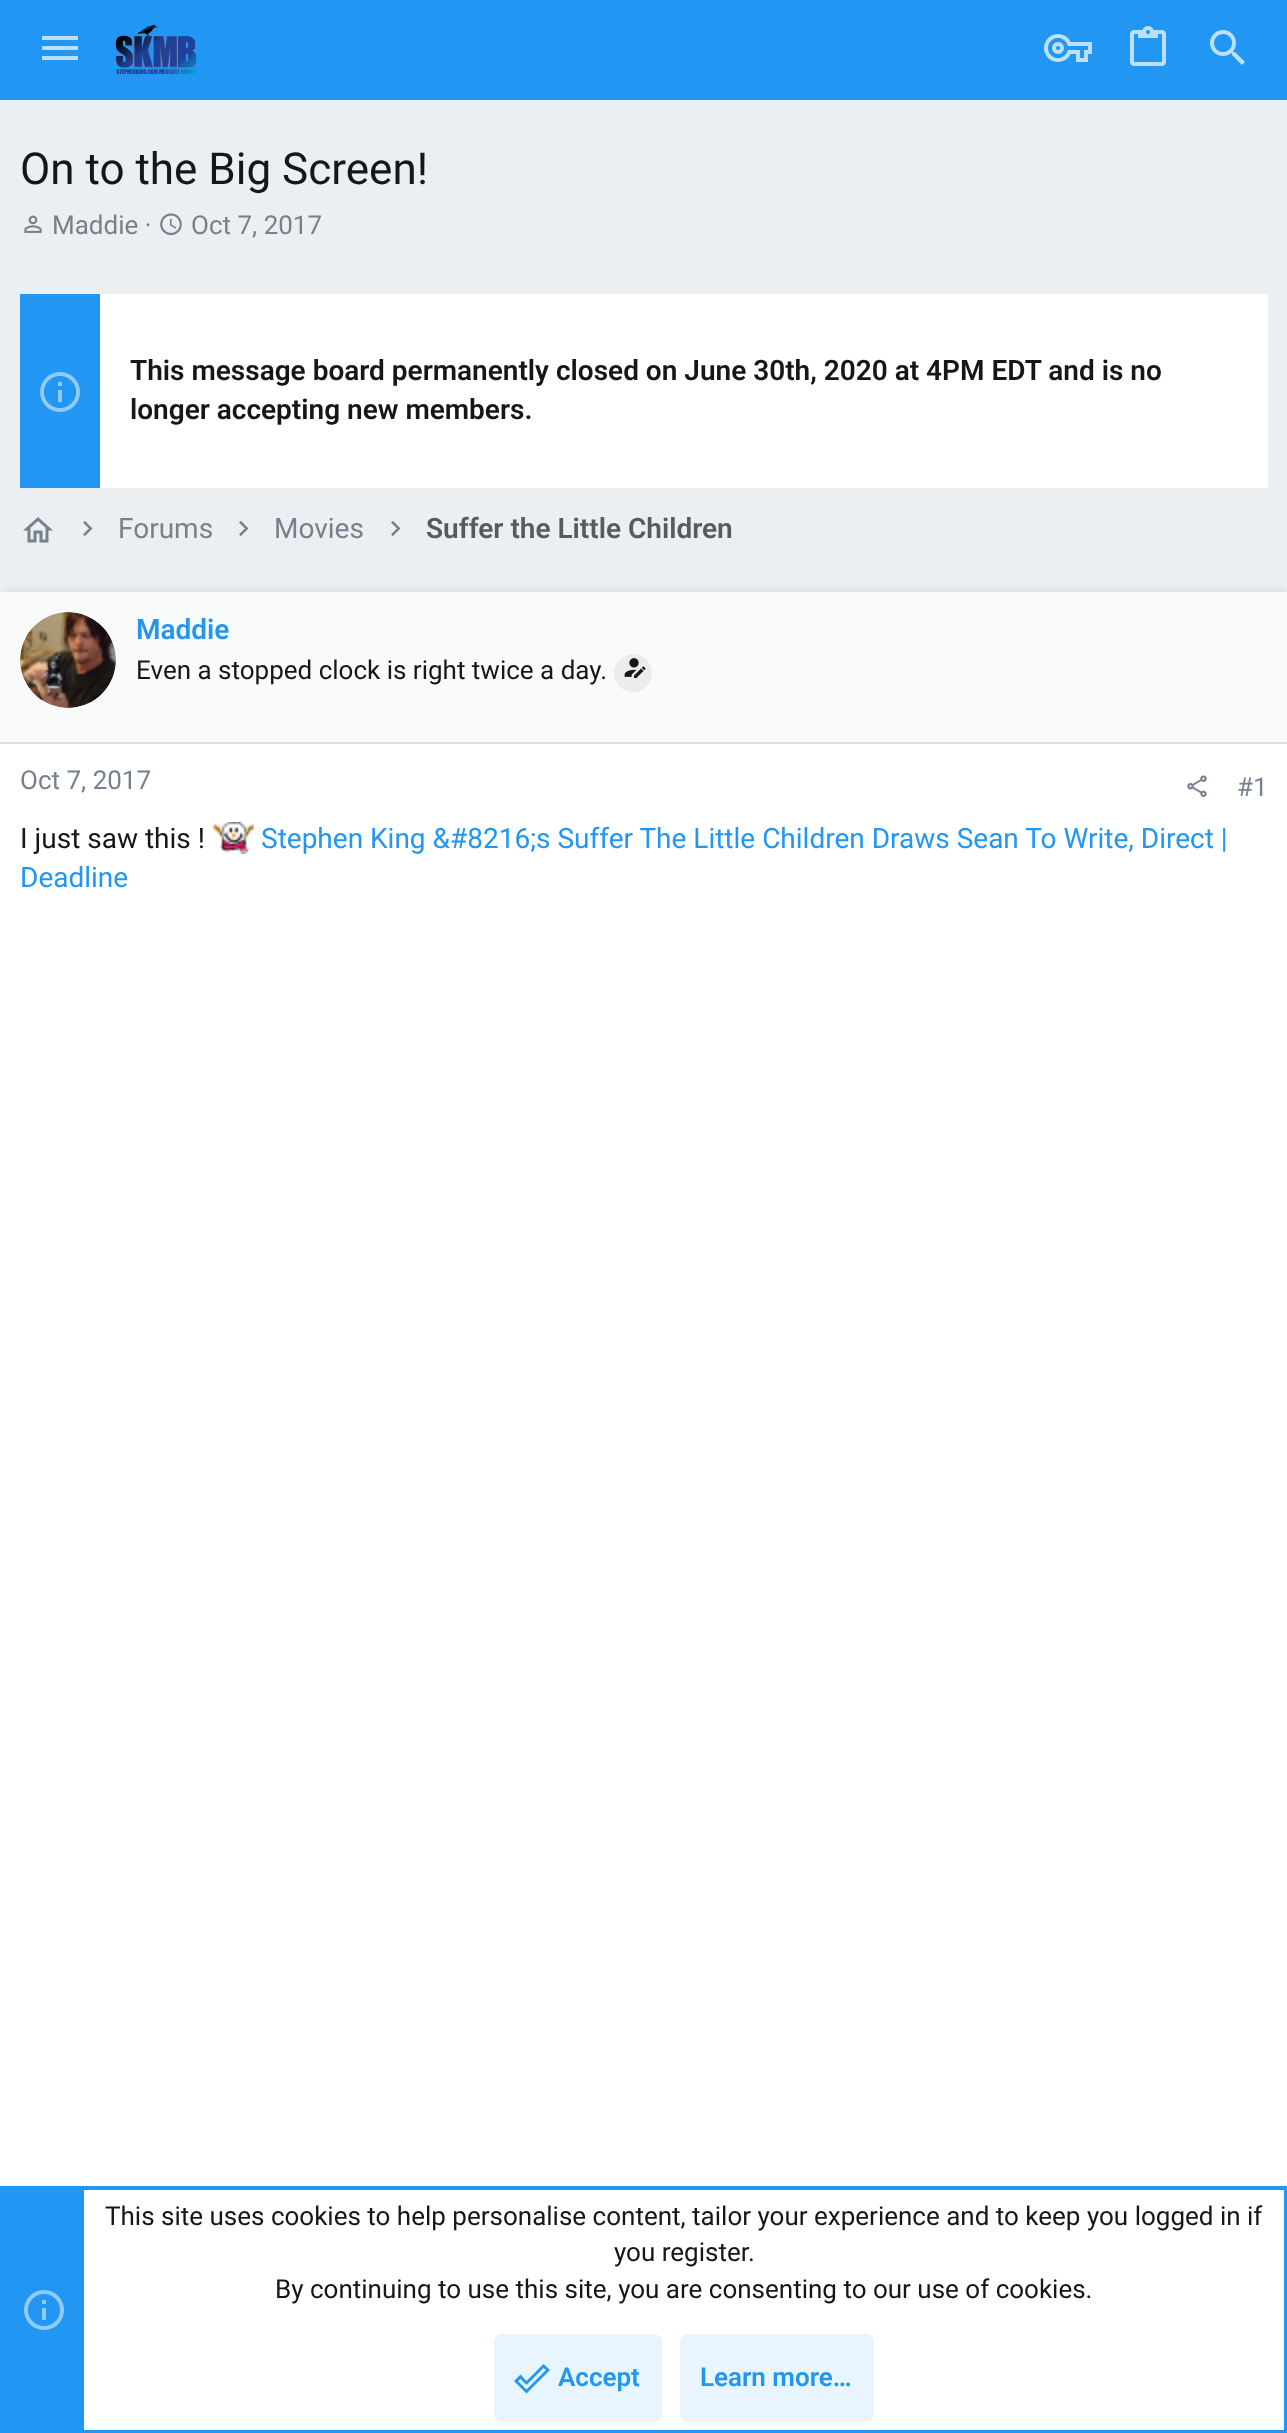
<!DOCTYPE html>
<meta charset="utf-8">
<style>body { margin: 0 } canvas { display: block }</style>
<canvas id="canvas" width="1287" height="2433"></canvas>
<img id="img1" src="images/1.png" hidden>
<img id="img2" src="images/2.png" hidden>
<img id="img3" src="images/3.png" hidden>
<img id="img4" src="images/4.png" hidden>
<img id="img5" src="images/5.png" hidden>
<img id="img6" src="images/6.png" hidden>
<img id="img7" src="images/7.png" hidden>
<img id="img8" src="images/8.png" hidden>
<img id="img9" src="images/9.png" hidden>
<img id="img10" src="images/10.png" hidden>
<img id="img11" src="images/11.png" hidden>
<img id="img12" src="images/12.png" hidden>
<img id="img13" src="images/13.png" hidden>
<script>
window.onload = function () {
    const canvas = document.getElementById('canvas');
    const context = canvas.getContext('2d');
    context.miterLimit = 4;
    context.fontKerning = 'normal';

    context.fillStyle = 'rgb(236, 239, 241)';
    context.fillRect(0, 0, 1287, 2433);
    context.fillStyle = 'rgb(33, 150, 243)';
    context.fillRect(0, 0, 1287, 100);
    context.fillStyle = 'rgb(188, 224, 251)';
    context.beginPath();
    context.moveTo(42, 36);
    context.lineTo(78, 36);
    context.lineTo(78, 40);
    context.lineTo(42, 40);
    context.closePath();
    context.moveTo(42, 46);
    context.lineTo(78, 46);
    context.lineTo(78, 50);
    context.lineTo(42, 50);
    context.closePath();
    context.moveTo(42, 56);
    context.lineTo(78, 56);
    context.lineTo(78, 60);
    context.lineTo(42, 60);
    context.closePath();
    context.fill();
    context.drawImage(document.getElementById('img1'), 115, 24, 81, 51);
    context.drawImage(document.getElementById('img2'), 1044, 34, 48, 28);
    context.drawImage(document.getElementById('img3'), 1130, 26, 36, 40);
    context.drawImage(document.getElementById('img4'), 1210, 30, 35, 35);
    context.drawImage(document.getElementById('img5'), 24, 215, 18, 18);
    context.drawImage(document.getElementById('img6'), 160, 213, 22, 23);
    context.fillStyle = 'rgb(255, 255, 255)';
    context.fillRect(100, 294, 1168, 194);
    context.fillStyle = 'rgb(33, 150, 243)';
    context.fillRect(20, 294, 80, 194);
    context.drawImage(document.getElementById('img7'), 40, 372, 40, 40);
    context.drawImage(document.getElementById('img8'), 23, 517, 30, 26);
    context.drawImage(document.getElementById('img9'), 83, 520, 10, 16);
    context.drawImage(document.getElementById('img9'), 239, 520, 10, 16);
    context.drawImage(document.getElementById('img9'), 391, 520, 10, 16);
    context.fillStyle = 'rgba(0, 0, 0, 0.2)';
    context.filter = 'blur(5px)';
    context.beginPath();
    context.roundRect(0, 594, 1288, 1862, 8);
    context.fill();
    context.filter = 'none';
    context.fillStyle = 'rgb(255, 255, 255)';
    context.fillRect(0, 744, 1287, 1686);
    context.fillStyle = 'rgb(249, 250, 250)';
    context.fillRect(0, 592, 1287, 150);
    context.fillStyle = 'rgb(224, 224, 224)';
    context.fillRect(0, 742, 1287, 2);
    context.fillStyle = 'rgb(255, 255, 255)';
    context.beginPath();
    context.arc(68, 660, 48, 0, 2 * Math.PI);
    context.fill();
    context.drawImage(document.getElementById('img10'), 20, 612, 96, 96);
    context.fillStyle = 'rgb(235, 236, 238)';
    context.beginPath();
    context.arc(633, 673, 19, 0, 2 * Math.PI);
    context.fill();
    context.drawImage(document.getElementById('img11'), 624, 658, 22, 20);
    context.drawImage(document.getElementById('img12'), 1187, 775, 20, 22);
    context.drawImage(document.getElementById('img13'), 212, 822, 42, 32);
    context.strokeStyle = 'rgb(33, 150, 243)';
    context.lineWidth = 4;
    context.strokeRect(2, 2188, 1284, 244);
    context.fillStyle = 'rgb(33, 150, 243)';
    context.fillRect(4, 2190, 80, 240);
    context.drawImage(document.getElementById('img7'), 24, 2290, 40, 40);
    context.fillStyle = 'rgb(233, 245, 254)';
    context.beginPath();
    context.roundRect(494, 2334, 168, 88, 8);
    context.fill();
    context.fillStyle = 'rgb(33, 150, 243)';
    context.beginPath();
    context.moveTo(543.5, 2364);
    context.lineTo(550, 2370);
    context.lineTo(526.5, 2393.5);
    context.lineTo(514, 2381);
    context.lineTo(520.5, 2374.5);
    context.lineTo(526.5, 2381);
    context.closePath();
    context.moveTo(543.5, 2368);
    context.lineTo(526.5, 2385);
    context.lineTo(520.5, 2379);
    context.lineTo(518, 2381);
    context.lineTo(526.5, 2389.5);
    context.lineTo(546, 2370);
    context.closePath();
    context.fill();
    context.fillStyle = 'rgb(233, 245, 254)';
    context.beginPath();
    context.roundRect(680, 2334, 194, 88, 8);
    context.fill();
    context.font = '44px Roboto';
    context.fillStyle = 'rgb(20, 22, 24)';
    context.fillText('On to the Big Screen!', 20, 184);
    context.font = '26px Roboto';
    context.fillStyle = 'rgb(118, 129, 141)';
    context.fillText('Maddie ·', 52, 234);
    context.fillText('Oct 7, 2017', 191, 234);
    context.font = '600 28px Roboto';
    context.fillStyle = 'rgb(20, 22, 24)';
    context.fillText('This message board permanently closed on June 30th, 2020 at 4PM EDT and is no', 130, 380);
    context.fillText('longer accepting new members.', 130, 419);
    context.font = '28px Roboto';
    context.fillStyle = 'rgb(118, 129, 141)';
    context.fillText('Forums', 118, 538);
    context.fillText('Movies', 274, 538);
    context.font = '600 28px Roboto';
    context.fillStyle = 'rgb(83, 91, 99)';
    context.fillText('Suffer the Little Children', 426, 538);
    context.fillStyle = 'rgb(33, 150, 243)';
    context.fillText('Maddie', 136, 639);
    context.font = '26px Roboto';
    context.fillStyle = 'rgb(20, 22, 24)';
    context.fillText('Even a stopped clock is right twice a day.', 136, 679);
    context.fillStyle = 'rgb(118, 129, 141)';
    context.fillText('Oct 7, 2017', 20, 789);
    context.fillText('#1', 1237, 796);
    context.font = '28px Roboto';
    context.fillStyle = 'rgb(20, 22, 24)';
    context.fillText('I just saw this !', 20, 848);
    context.fillStyle = 'rgb(33, 150, 243)';
    context.fillText('Stephen King &#8216;s Suffer The Little Children Draws Sean To Write, Direct |', 261, 848);
    context.fillText('Deadline', 20, 887);
    context.font = '26px Roboto';
    context.fillStyle = 'rgb(20, 22, 24)';
    context.fillText('This site uses cookies to help personalise content, tailor your experience and to keep you logged in if', 105, 2225);
    context.fillText('you register.', 614, 2261);
    context.fillText('By continuing to use this site, you are consenting to our use of cookies.', 275, 2298);
    context.font = '600 26px Roboto';
    context.fillStyle = 'rgb(33, 150, 243)';
    context.fillText('Accept', 558, 2386);
    context.fillText('Learn more…', 700, 2386);
};
</script>
